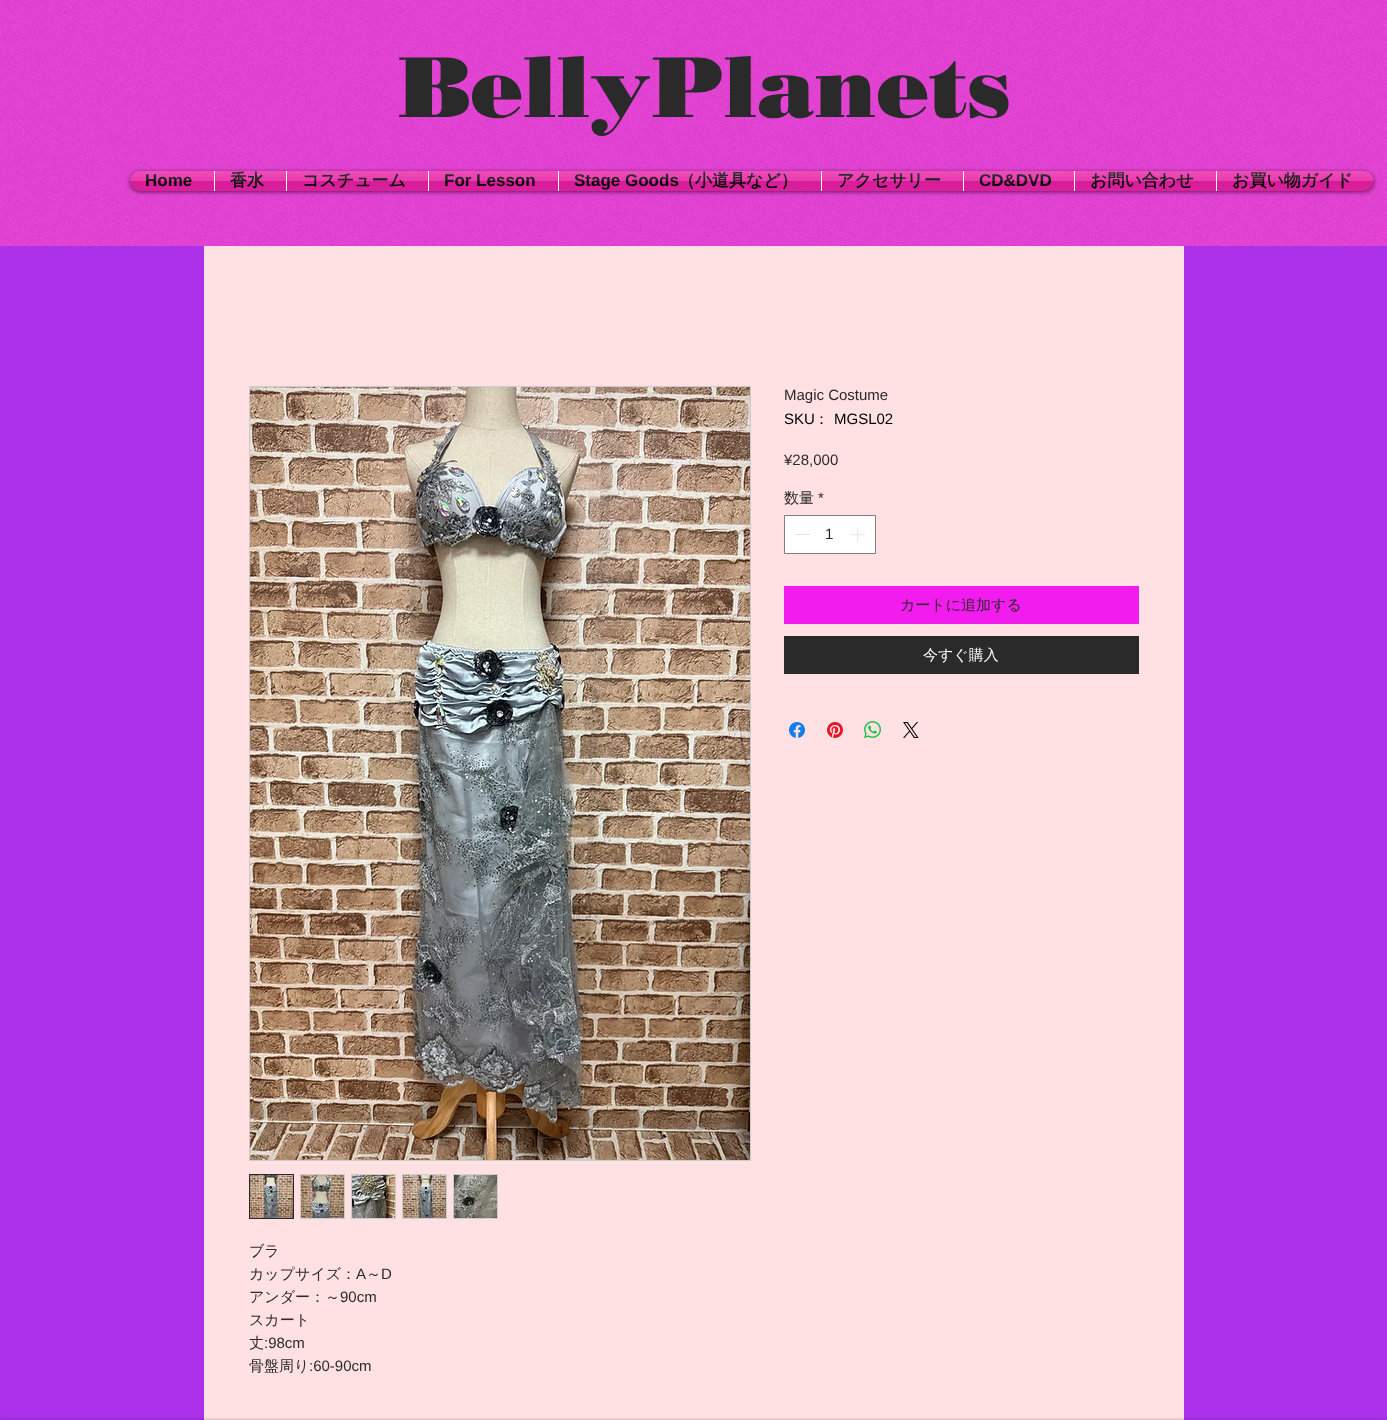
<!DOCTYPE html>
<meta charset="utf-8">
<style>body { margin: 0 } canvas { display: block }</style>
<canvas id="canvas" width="1387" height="1420"></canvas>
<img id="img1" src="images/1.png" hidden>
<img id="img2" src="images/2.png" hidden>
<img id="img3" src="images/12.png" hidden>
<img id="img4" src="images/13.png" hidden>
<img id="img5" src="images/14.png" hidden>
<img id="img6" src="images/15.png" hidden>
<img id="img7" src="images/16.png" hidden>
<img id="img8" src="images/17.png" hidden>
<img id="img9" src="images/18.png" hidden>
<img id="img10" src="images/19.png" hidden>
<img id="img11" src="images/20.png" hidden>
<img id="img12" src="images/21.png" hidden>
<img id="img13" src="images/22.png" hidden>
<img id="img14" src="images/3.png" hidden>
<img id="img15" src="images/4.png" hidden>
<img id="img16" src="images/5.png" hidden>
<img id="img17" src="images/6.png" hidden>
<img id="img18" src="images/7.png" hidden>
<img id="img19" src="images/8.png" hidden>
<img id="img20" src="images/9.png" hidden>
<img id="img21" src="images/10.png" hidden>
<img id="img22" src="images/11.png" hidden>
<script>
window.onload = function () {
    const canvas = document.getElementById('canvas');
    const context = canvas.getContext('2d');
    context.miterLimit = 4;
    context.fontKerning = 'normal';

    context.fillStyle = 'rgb(173, 49, 235)';
    context.fillRect(0, 0, 1387, 1420);
    context.fillStyle = 'rgb(232, 67, 216)';
    context.fillRect(0, 0, 1387, 246);
    context.drawImage(document.getElementById('img1'), 0, 0, 1387, 246);
    context.fillStyle = 'rgba(0, 0, 0, 0.6)';
    context.filter = 'blur(2px)';
    context.beginPath();
    context.roundRect(130, 172, 1244, 20, 10);
    context.fill();
    context.filter = 'none';
    context.drawImage(document.getElementById('img2'), 130, 171, 1244, 20);
    context.fillStyle = 'rgb(232, 32, 166)';
    context.beginPath();
    context.roundRect(130, 171, 84, 20, [10, 0, 0, 10]);
    context.fill();
    context.fillRect(215, 171, 71, 20);
    context.fillStyle = 'rgb(255, 255, 255)';
    context.fillRect(214, 171, 1, 20);
    context.fillStyle = 'rgb(232, 32, 166)';
    context.fillRect(287, 171, 141, 20);
    context.fillStyle = 'rgb(255, 255, 255)';
    context.fillRect(286, 171, 1, 20);
    context.fillStyle = 'rgb(232, 32, 166)';
    context.fillRect(429, 171, 129, 20);
    context.fillStyle = 'rgb(255, 255, 255)';
    context.fillRect(428, 171, 1, 20);
    context.fillStyle = 'rgb(232, 32, 166)';
    context.fillRect(559, 171, 262, 20);
    context.fillStyle = 'rgb(255, 255, 255)';
    context.fillRect(558, 171, 1, 20);
    context.fillStyle = 'rgb(232, 32, 166)';
    context.fillRect(822, 171, 141, 20);
    context.fillStyle = 'rgb(255, 255, 255)';
    context.fillRect(821, 171, 1, 20);
    context.fillStyle = 'rgb(232, 32, 166)';
    context.fillRect(964, 171, 110, 20);
    context.fillStyle = 'rgb(255, 255, 255)';
    context.fillRect(963, 171, 1, 20);
    context.fillStyle = 'rgb(232, 32, 166)';
    context.fillRect(1075, 171, 141, 20);
    context.fillStyle = 'rgb(255, 255, 255)';
    context.fillRect(1074, 171, 1, 20);
    context.fillStyle = 'rgb(232, 32, 166)';
    context.beginPath();
    context.roundRect(1216, 171, 158, 20, [0, 10, 10, 0]);
    context.fill();
    context.fillStyle = 'rgb(255, 255, 255)';
    context.fillRect(1216, 171, 1, 20);
    context.fillStyle = 'rgb(255, 224, 227)';
    context.fillRect(204, 246, 980, 1174);
    context.fillStyle = 'rgb(255, 255, 255)';
    context.beginPath();
    context.rect(784.5, 515.5, 91, 38);
    context.fill();
    context.strokeStyle = 'rgb(127, 127, 127)';
    context.stroke();
    context.fillStyle = 'rgb(227, 227, 227)';
    context.fillRect(796, 534, 14, 1);
    context.drawImage(document.getElementById('img3'), 850, 527, 15, 15);
    context.fillStyle = 'rgb(242, 28, 238)';
    context.fillRect(784, 586, 355, 38);
    context.fillStyle = 'rgb(42, 42, 42)';
    context.fillRect(784, 636, 355, 38);
    context.drawImage(document.getElementById('img4'), 789, 722, 16, 16);
    context.drawImage(document.getElementById('img5'), 827, 722, 16, 16);
    context.drawImage(document.getElementById('img6'), 864, 721, 17, 17);
    context.drawImage(document.getElementById('img7'), 903, 722, 16, 16);
    context.strokeStyle = 'rgb(204, 204, 204)';
    context.strokeRect(249.5, 386.5, 501, 774);
    context.drawImage(document.getElementById('img8'), 250, 387, 500, 773);
    context.strokeStyle = 'rgb(42, 42, 42)';
    context.strokeRect(249.5, 1174.5, 44, 44);
    context.drawImage(document.getElementById('img9'), 250, 1175, 43, 43);
    context.strokeStyle = 'rgb(204, 204, 204)';
    context.strokeRect(300.5, 1174.5, 44, 44);
    context.drawImage(document.getElementById('img10'), 301, 1175, 43, 43);
    context.strokeRect(351.5, 1174.5, 44, 44);
    context.drawImage(document.getElementById('img11'), 352, 1175, 43, 43);
    context.strokeRect(402.5, 1174.5, 44, 44);
    context.drawImage(document.getElementById('img12'), 403, 1175, 43, 43);
    context.strokeRect(453.5, 1174.5, 44, 44);
    context.drawImage(document.getElementById('img13'), 454, 1175, 43, 43);
    context.fillStyle = 'rgba(0, 0, 0, 0.7)';
    context.filter = 'blur(2.5px)';
    context.beginPath();
    context.rect(0, 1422, 1387, 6);
    context.fill();
    context.filter = 'none';
    context.font = '900 86px "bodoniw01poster"';
    context.fillStyle = 'rgb(42, 42, 42)';
    context.fillText('BellyPlanets', 399, 117);
    context.font = 'bold 17px Liberation Sans';
    context.fillStyle = 'rgb(0, 0, 0)';
    context.fillText('Home', 145, 186);
    context.drawImage(document.getElementById('img14'), 130, 171, 84, 20);
    context.font = 'bold 17px WenQuanYi Zen Hei';
    context.fillText('香水', 230, 186);
    context.drawImage(document.getElementById('img15'), 215, 171, 71, 20);
    context.fillText('コスチューム', 302, 186);
    context.drawImage(document.getElementById('img16'), 287, 171, 141, 20);
    context.font = 'bold 17px Liberation Sans';
    context.fillText('For Lesson', 444, 186);
    context.drawImage(document.getElementById('img17'), 429, 171, 129, 20);
    context.fillText('Stage Goods', 574, 186);
    context.font = 'bold 17px WenQuanYi Zen Hei';
    context.fillText('（小道具など）', 678, 186);
    context.drawImage(document.getElementById('img18'), 559, 171, 262, 20);
    context.fillText('アクセサリー', 837, 186);
    context.drawImage(document.getElementById('img19'), 822, 171, 141, 20);
    context.font = 'bold 17px Liberation Sans';
    context.fillText('CD&DVD', 979, 186);
    context.drawImage(document.getElementById('img20'), 964, 171, 110, 20);
    context.font = 'bold 17px WenQuanYi Zen Hei';
    context.fillText('お問い合わせ', 1090, 186);
    context.drawImage(document.getElementById('img21'), 1075, 171, 141, 20);
    context.fillText('お買い物ガイド', 1232, 186);
    context.drawImage(document.getElementById('img22'), 1217, 171, 157, 20);
    context.font = '15px Liberation Sans';
    context.fillStyle = 'rgb(42, 42, 42)';
    context.fillText('Magic Costume', 784, 400);
    context.fillStyle = 'rgb(0, 0, 0)';
    context.fillText('SKU', 784, 424);
    context.font = '500 15px WenQuanYi Zen Hei';
    context.fillText('：', 814, 424);
    context.font = '15px Liberation Sans';
    context.fillText('MGSL02', 834, 424);
    context.fillStyle = 'rgb(42, 42, 42)';
    context.fillText('¥28,000', 784, 465);
    context.font = '500 15px WenQuanYi Zen Hei';
    context.fillText('数量', 784, 503);
    context.font = '15px Liberation Sans';
    context.fillText('*', 818, 503);
    context.fillText('1', 825, 539);
    context.font = '500 15px WenQuanYi Zen Hei';
    context.fillText('カートに追加する', 900, 610);
    context.fillStyle = 'rgb(255, 255, 255)';
    context.fillText('今すぐ購入', 923, 660);
    context.fillStyle = 'rgb(42, 42, 42)';
    context.fillText('ブラ', 249, 1256);
    context.fillText('カップサイズ：', 249, 1279);
    context.font = '15px Liberation Sans';
    context.fillText('A', 356, 1279);
    context.font = '500 15px WenQuanYi Zen Hei';
    context.fillText('～', 366, 1279);
    context.font = '15px Liberation Sans';
    context.fillText('D', 381, 1279);
    context.font = '500 15px WenQuanYi Zen Hei';
    context.fillText('アンダー：～', 249, 1302);
    context.font = '15px Liberation Sans';
    context.fillText('90cm', 340, 1302);
    context.font = '500 15px WenQuanYi Zen Hei';
    context.fillText('スカート', 249, 1325);
    context.fillText('丈', 249, 1348);
    context.font = '15px Liberation Sans';
    context.fillText(':98cm', 264, 1348);
    context.font = '500 15px WenQuanYi Zen Hei';
    context.fillText('骨盤周り', 249, 1371);
    context.font = '15px Liberation Sans';
    context.fillText(':60-90cm', 309, 1371);
};
</script>
